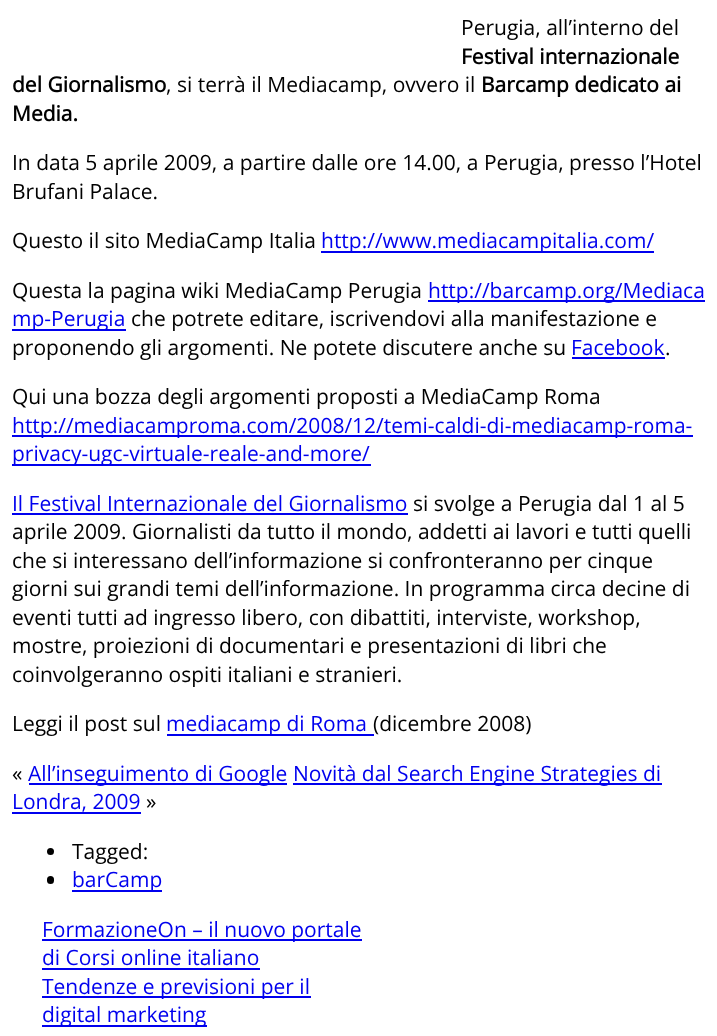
<!DOCTYPE html>
<meta charset="utf-8">
<style>body { margin: 0 } canvas { display: block }</style>
<canvas id="canvas" width="717" height="1036"></canvas>
<script>
window.onload = function () {
    const canvas = document.getElementById('canvas');
    const context = canvas.getContext('2d');
    context.miterLimit = 4;
    context.fontKerning = 'normal';

    context.fillStyle = 'rgb(255, 255, 255)';
    context.fillRect(0, 0, 717, 1036);
    context.fillStyle = 'rgb(0, 0, 238)';
    context.fillRect(321, 251, 333, 2);
    context.fillRect(428, 300, 277, 2);
    context.fillRect(12, 329, 114, 2);
    context.fillRect(572, 357, 93, 2);
    context.fillRect(12, 435, 681, 2);
    context.fillRect(12, 464, 359, 2);
    context.fillRect(12, 513, 396, 2);
    context.fillRect(167, 734, 207, 2);
    context.fillRect(29, 783, 258, 2);
    context.fillRect(293, 783, 369, 2);
    context.fillRect(12, 812, 129, 2);
    context.fillStyle = 'rgb(0, 0, 0)';
    context.beginPath();
    context.arc(50.5, 851.5, 3.5, 0, 2 * Math.PI);
    context.fill();
    context.beginPath();
    context.roundRect(47, 876, 7, 8, 3.5);
    context.fill();
    context.fillStyle = 'rgb(0, 0, 238)';
    context.fillRect(72, 890, 90, 2);
    context.fillRect(42, 939, 320, 2);
    context.fillRect(42, 968, 218, 2);
    context.fillRect(42, 996, 269, 2);
    context.fillRect(42, 1025, 165, 2);
    context.font = '21px Open Sans';
    context.fillStyle = 'rgb(0, 0, 0)';
    context.fillText('Perugia, all’interno del', 461, 35);
    context.font = 'bold 21px Open Sans';
    context.fillText('Festival internazionale', 461, 64);
    context.fillText('del Giornalismo', 12, 92);
    context.font = '21px Open Sans';
    context.fillText(', si terrà il Mediacamp, ovvero il', 166, 92);
    context.font = 'bold 21px Open Sans';
    context.fillText('Barcamp dedicato ai', 481, 92);
    context.fillText('Media.', 12, 121);
    context.font = '21px Open Sans';
    context.fillText('In data 5 aprile 2009, a partire dalle ore 14.00, a Perugia, presso l’Hotel', 12, 170);
    context.fillText('Brufani Palace.', 12, 199);
    context.fillText('Questo il sito MediaCamp Italia', 12, 248);
    context.fillStyle = 'rgb(0, 0, 238)';
    context.fillText('http://www.mediacampitalia.com/', 321, 248);
    context.fillStyle = 'rgb(0, 0, 0)';
    context.fillText('Questa la pagina wiki MediaCamp Perugia', 12, 298);
    context.fillStyle = 'rgb(0, 0, 238)';
    context.fillText('http://barcamp.org/Mediaca', 428, 298);
    context.fillText('mp-Perugia', 12, 326);
    context.fillStyle = 'rgb(0, 0, 0)';
    context.fillText('che potrete editare, iscrivendovi alla manifestazione e', 131, 326);
    context.fillText('proponendo gli argomenti. Ne potete discutere anche su', 12, 355);
    context.fillStyle = 'rgb(0, 0, 238)';
    context.fillText('Facebook', 571, 355);
    context.fillStyle = 'rgb(0, 0, 0)';
    context.fillText('.', 665, 355);
    context.fillText('Qui una bozza degli argomenti proposti a MediaCamp Roma', 12, 404);
    context.fillStyle = 'rgb(0, 0, 238)';
    context.fillText('http://mediacamproma.com/2008/12/temi-caldi-di-mediacamp-roma-', 12, 433);
    context.fillText('privacy-ugc-virtuale-reale-and-more/', 12, 461);
    context.fillText('Il Festival Internazionale del Giornalismo', 12, 511);
    context.fillStyle = 'rgb(0, 0, 0)';
    context.fillText('si svolge a Perugia dal 1 al 5', 413, 511);
    context.fillText('aprile 2009. Giornalisti da tutto il mondo, addetti ai lavori e tutti quelli', 12, 539);
    context.fillText('che si interessano dell’informazione si confronteranno per cinque', 12, 568);
    context.fillText('giorni sui grandi temi dell’informazione. In programma circa decine di', 12, 596);
    context.fillText('eventi tutti ad ingresso libero, con dibattiti, interviste, workshop,', 12, 625);
    context.fillText('mostre, proiezioni di documentari e presentazioni di libri che', 12, 653);
    context.fillText('coinvolgeranno ospiti italiani e stranieri.', 12, 682);
    context.fillText('Leggi il post sul', 12, 731);
    context.fillStyle = 'rgb(0, 0, 238)';
    context.fillText('mediacamp di Roma', 166, 731);
    context.fillStyle = 'rgb(0, 0, 0)';
    context.fillText('(dicembre 2008)', 373, 731);
    context.fillText('«', 12, 781);
    context.fillStyle = 'rgb(0, 0, 238)';
    context.fillText('All’inseguimento di Google', 28, 781);
    context.fillText('Novità dal Search Engine Strategies di', 293, 781);
    context.fillText('Londra, 2009', 12, 809);
    context.fillStyle = 'rgb(0, 0, 0)';
    context.fillText('»', 146, 809);
    context.fillText('Tagged:', 72, 859);
    context.fillStyle = 'rgb(0, 0, 238)';
    context.fillText('barCamp', 72, 887);
    context.fillText('FormazioneOn – il nuovo portale', 42, 937);
    context.fillText('di Corsi online italiano', 42, 965);
    context.fillText('Tendenze e previsioni per il', 42, 994);
    context.fillText('digital marketing', 42, 1022);
};
</script>
